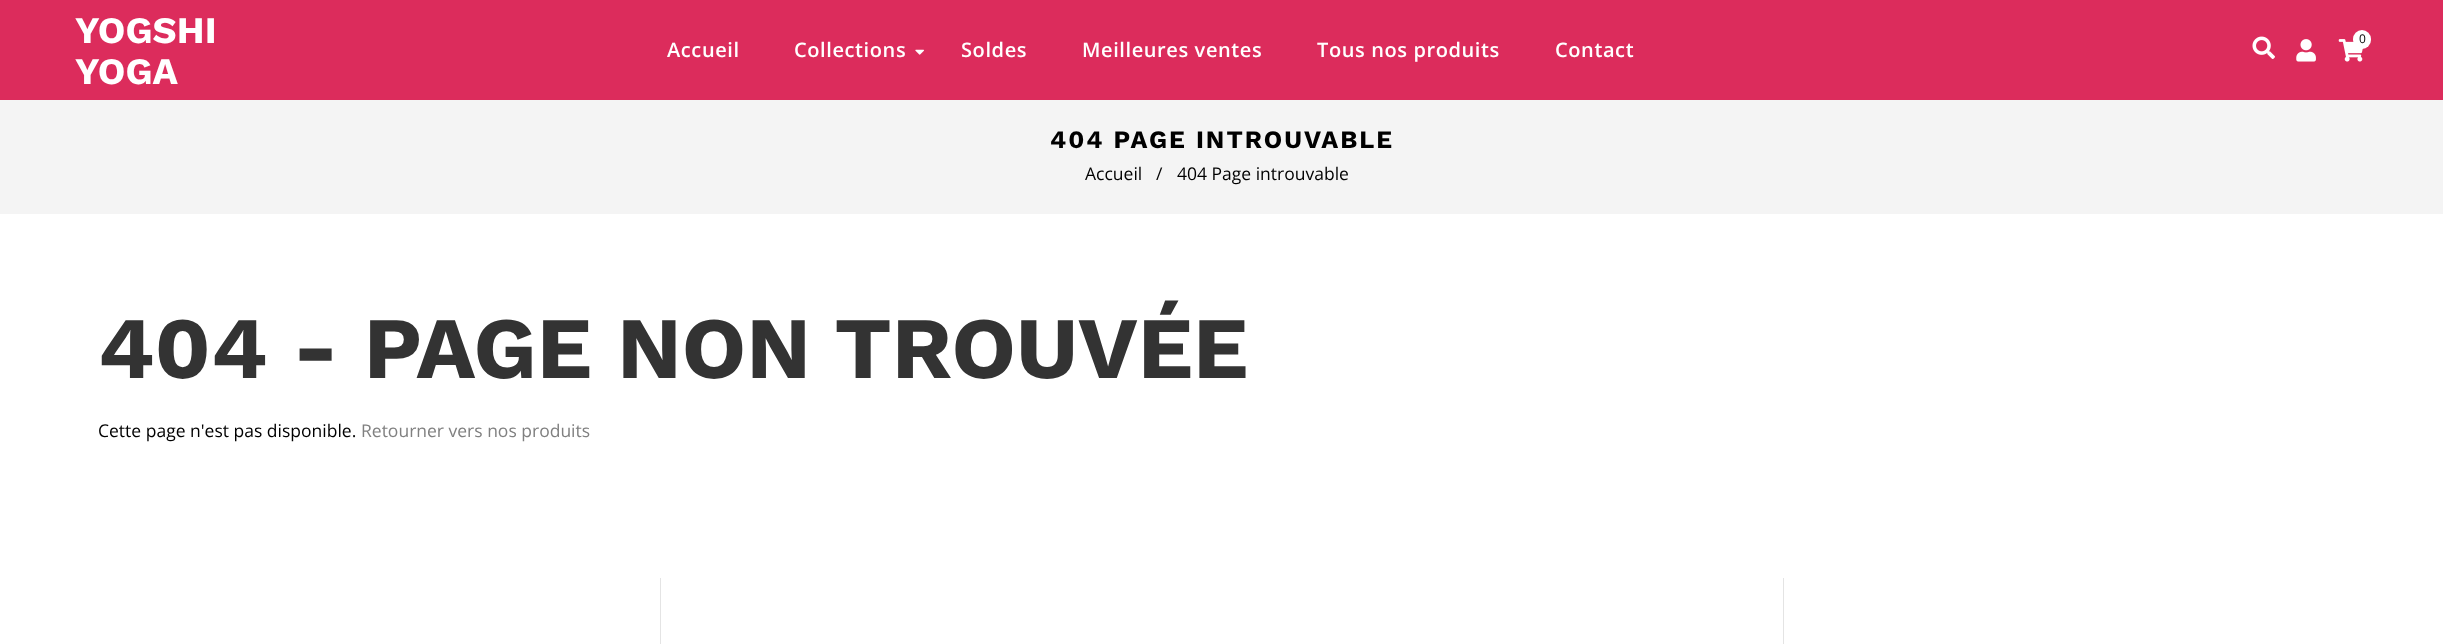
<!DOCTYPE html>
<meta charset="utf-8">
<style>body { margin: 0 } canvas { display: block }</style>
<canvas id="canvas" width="2443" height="644"></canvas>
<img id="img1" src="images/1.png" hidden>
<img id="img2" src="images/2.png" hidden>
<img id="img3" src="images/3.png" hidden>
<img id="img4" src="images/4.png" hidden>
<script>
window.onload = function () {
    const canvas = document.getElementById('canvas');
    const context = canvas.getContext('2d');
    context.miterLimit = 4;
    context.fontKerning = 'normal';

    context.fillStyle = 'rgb(255, 255, 255)';
    context.fillRect(0, 0, 2443, 644);
    context.fillStyle = 'rgb(220, 44, 92)';
    context.fillRect(0, 0, 2443, 100);
    context.drawImage(document.getElementById('img1'), 2252, 36, 23, 23);
    context.drawImage(document.getElementById('img2'), 2296, 39, 20, 23);
    context.drawImage(document.getElementById('img3'), 2338, 39, 25, 23);
    context.fillStyle = 'rgb(255, 255, 255)';
    context.beginPath();
    context.roundRect(2353, 30, 18, 19, 9);
    context.fill();
    context.drawImage(document.getElementById('img4'), 915, 49, 9, 6);
    context.fillStyle = 'rgb(244, 244, 244)';
    context.fillRect(0, 100, 2443, 114);
    context.fillStyle = 'rgb(228, 228, 228)';
    context.fillRect(1783, 578, 1, 66);
    context.fillRect(660, 578, 1, 66);
    context.font = 'bold 37.5px Work Sans';
    context.fillStyle = 'rgb(255, 255, 255)';
    context.fillText('YOGSHI', 75, 43);
    context.fillText('YOGA', 75, 84);
    context.font = '12px Open Sans';
    context.fillStyle = 'rgb(0, 0, 0)';
    context.fillText('0', 2359, 43);
    context.letterSpacing = '0.6px';
    context.font = '600 20px Open Sans';
    context.fillStyle = 'rgb(255, 255, 255)';
    context.fillText('Accueil', 667, 57);
    context.fillText('Collections', 794, 57);
    context.fillText('Soldes', 961, 57);
    context.fillText('Meilleures ventes', 1082, 57);
    context.fillText('Tous nos produits', 1317, 57);
    context.fillText('Contact', 1555, 57);
    context.letterSpacing = '2px';
    context.font = 'bold 25px Work Sans';
    context.fillStyle = 'rgb(0, 0, 0)';
    context.fillText('404 PAGE INTROUVABLE', 1050, 148);
    context.letterSpacing = '0px';
    context.font = '17.5px Open Sans';
    context.fillText('Accueil', 1085, 180);
    context.fillText('/', 1156, 180);
    context.fillText('404 Page introuvable', 1177, 180);
    context.font = 'bold 87.5px Work Sans';
    context.fillStyle = 'rgb(51, 51, 51)';
    context.fillText('404 - PAGE NON TROUVÉE', 98, 378);
    context.font = '17.5px Open Sans';
    context.fillStyle = 'rgb(0, 0, 0)';
    context.fillText('Cette page n\'est pas disponible.', 98, 437);
    context.fillStyle = 'rgb(128, 128, 128)';
    context.fillText('Retourner vers nos produits', 361, 437);
};
</script>
